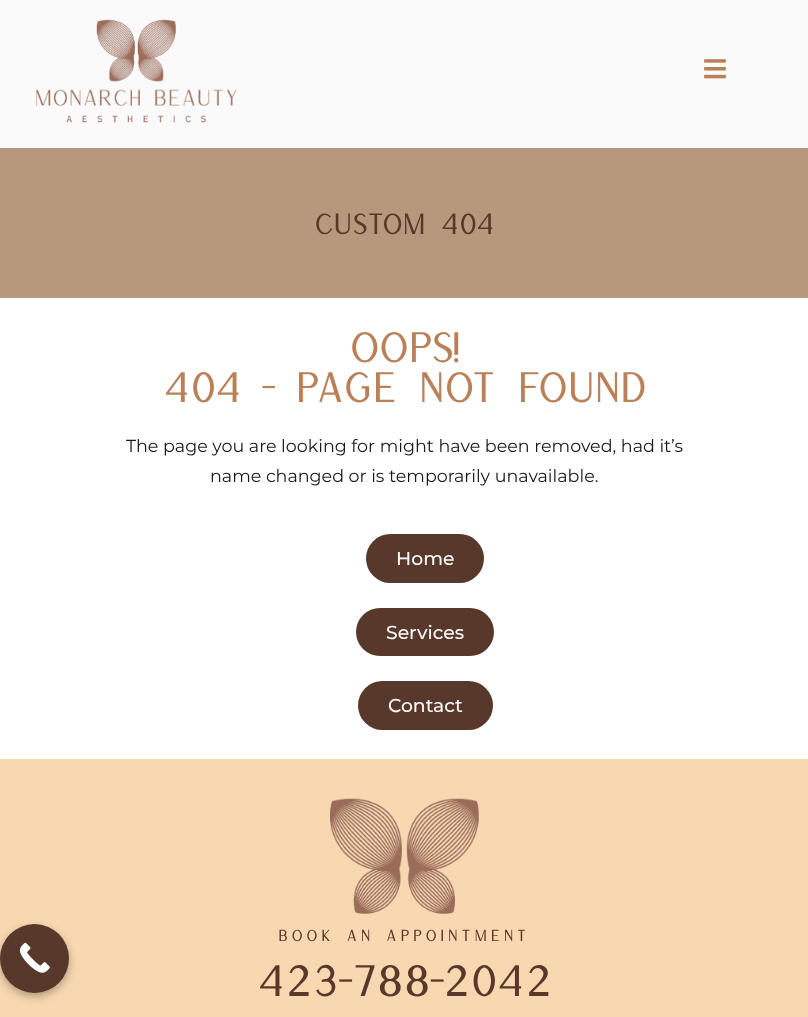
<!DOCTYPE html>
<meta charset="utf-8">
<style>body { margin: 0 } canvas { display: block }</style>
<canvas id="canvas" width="808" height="1017"></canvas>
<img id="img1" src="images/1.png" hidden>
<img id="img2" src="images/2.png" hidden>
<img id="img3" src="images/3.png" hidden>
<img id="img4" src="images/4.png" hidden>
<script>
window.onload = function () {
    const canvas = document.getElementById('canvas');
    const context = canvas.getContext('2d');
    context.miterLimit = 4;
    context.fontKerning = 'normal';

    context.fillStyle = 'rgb(255, 255, 255)';
    context.fillRect(0, 0, 808, 1017);
    context.fillStyle = 'rgb(250, 250, 250)';
    context.fillRect(0, 0, 808, 148);
    context.drawImage(document.getElementById('img1'), 36, 19, 201, 104);
    context.drawImage(document.getElementById('img2'), 704, 59, 22, 20);
    context.fillStyle = 'rgb(248, 216, 177)';
    context.fillRect(0, 759, 808, 258);
    context.fillStyle = 'rgba(0, 0, 0, 0.3)';
    context.filter = 'blur(4px)';
    context.beginPath();
    context.roundRect(0, 928, 69, 68, 34);
    context.fill();
    context.filter = 'none';
    context.fillStyle = 'rgb(89, 56, 44)';
    context.beginPath();
    context.arc(34.5, 958.5, 34.5, 0, 2 * Math.PI);
    context.fill();
    context.drawImage(document.getElementById('img3'), 19, 942, 31, 31);
    context.fillStyle = 'rgb(184, 152, 124)';
    context.fillRect(0, 148, 808, 150);
    context.fillStyle = 'rgb(89, 56, 44)';
    context.beginPath();
    context.roundRect(366, 534, 118, 49, 24.5);
    context.fill();
    context.beginPath();
    context.roundRect(356, 608, 138, 48, 24);
    context.fill();
    context.beginPath();
    context.roundRect(358, 681, 135, 49, 24.5);
    context.fill();
    context.drawImage(document.getElementById('img4'), 330, 798, 149, 116);
    context.font = 'bold 27.5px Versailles';
    context.fillText('CUSTOM 404', 314, 234);
    context.font = 'bold 40px Versailles';
    context.fillStyle = 'rgb(186, 128, 88)';
    context.fillText('OOPS!', 349, 362);
    context.fillText('404 - PAGE NOT FOUND', 162, 402);
    context.font = '17.5px Montserrat';
    context.fillStyle = 'rgb(30, 21, 28)';
    context.fillText('The page you are looking for might have been removed, had it’s', 126, 452);
    context.fillText('name changed or is temporarily unavailable.', 210, 482);
    context.font = '500 18.75px Montserrat';
    context.fillStyle = 'rgb(250, 250, 250)';
    context.fillText('Home', 396, 565);
    context.fillText('Services', 386, 639);
    context.fillText('Contact', 388, 712);
    context.letterSpacing = '3.75px';
    context.font = 'bold 15px Versailles';
    context.fillStyle = 'rgb(89, 56, 44)';
    context.fillText('BOOK AN APPOINTMENT', 278, 941);
    context.letterSpacing = '0.75px';
    context.font = 'bold 41.25px Versailles';
    context.fillText('423-788-2042', 256, 996);
};
</script>
